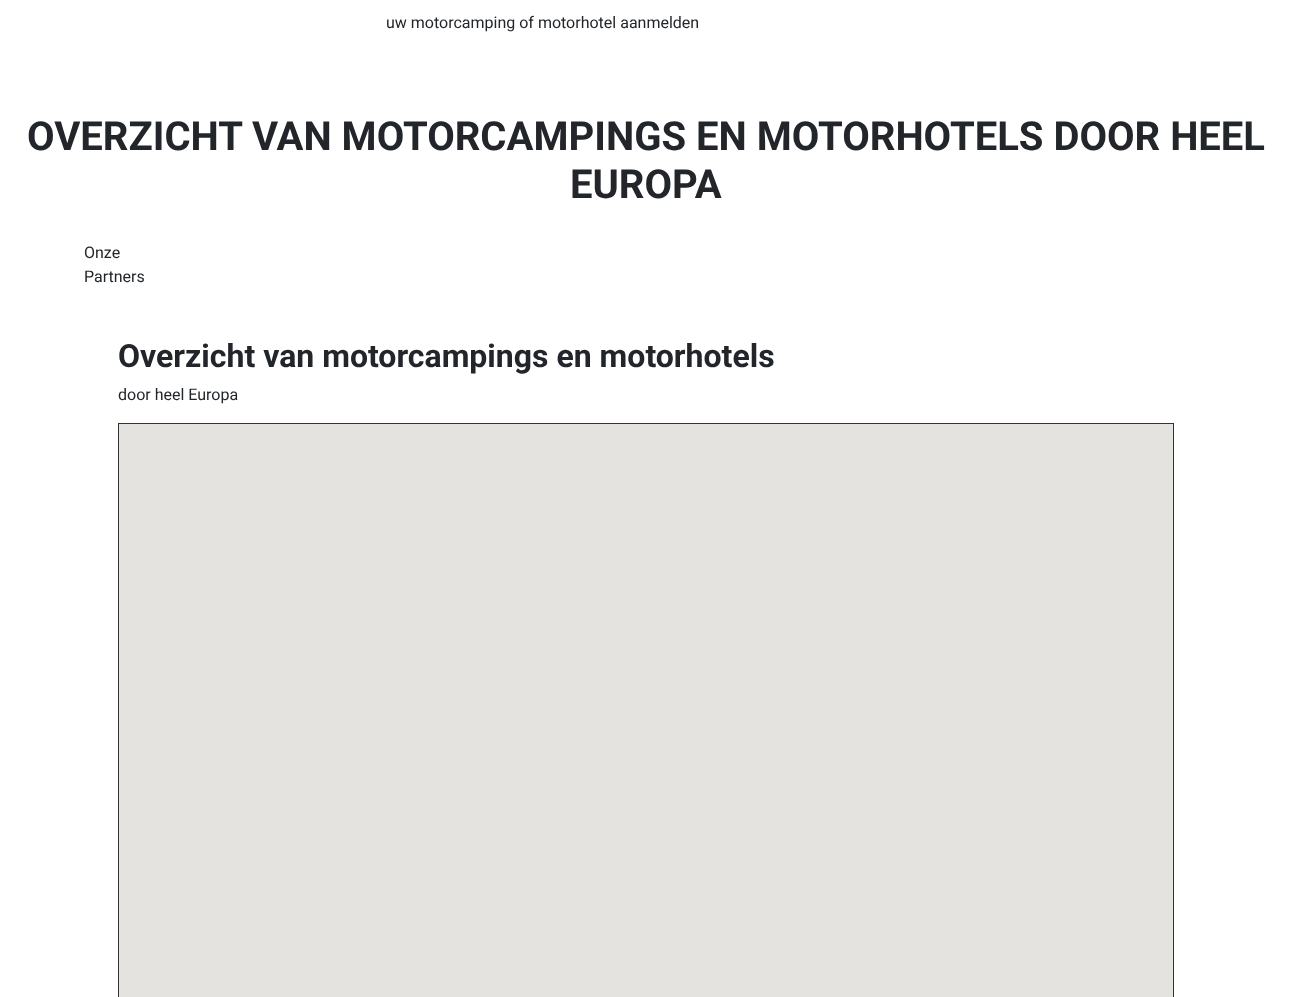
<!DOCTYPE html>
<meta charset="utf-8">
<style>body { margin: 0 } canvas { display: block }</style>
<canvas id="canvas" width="1292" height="997"></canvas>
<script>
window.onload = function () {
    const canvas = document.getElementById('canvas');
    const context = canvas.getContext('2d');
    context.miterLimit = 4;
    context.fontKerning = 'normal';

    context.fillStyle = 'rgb(255, 255, 255)';
    context.fillRect(0, 0, 1292, 997);
    context.strokeStyle = 'rgb(51, 51, 51)';
    context.strokeRect(118.5, 423.5, 1055, 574);
    context.fillStyle = 'rgb(229, 227, 223)';
    context.fillRect(119, 424, 1054, 573);
    context.font = '16px Roboto';
    context.fillStyle = 'rgb(34, 38, 42)';
    context.fillText('uw motorcamping of motorhotel aanmelden', 386, 28);
    context.font = 'bold 40px Roboto';
    context.fillText('OVERZICHT VAN MOTORCAMPINGS EN MOTORHOTELS DOOR HEEL', 27, 150);
    context.fillText('EUROPA', 570, 198);
    context.font = '16px Roboto';
    context.fillText('Onze', 84, 258);
    context.fillText('Partners', 84, 282);
    context.font = 'bold 32px Roboto';
    context.fillText('Overzicht van motorcampings en motorhotels', 118, 367);
    context.font = '16px Roboto';
    context.fillText('door heel Europa', 118, 400);
};
</script>
